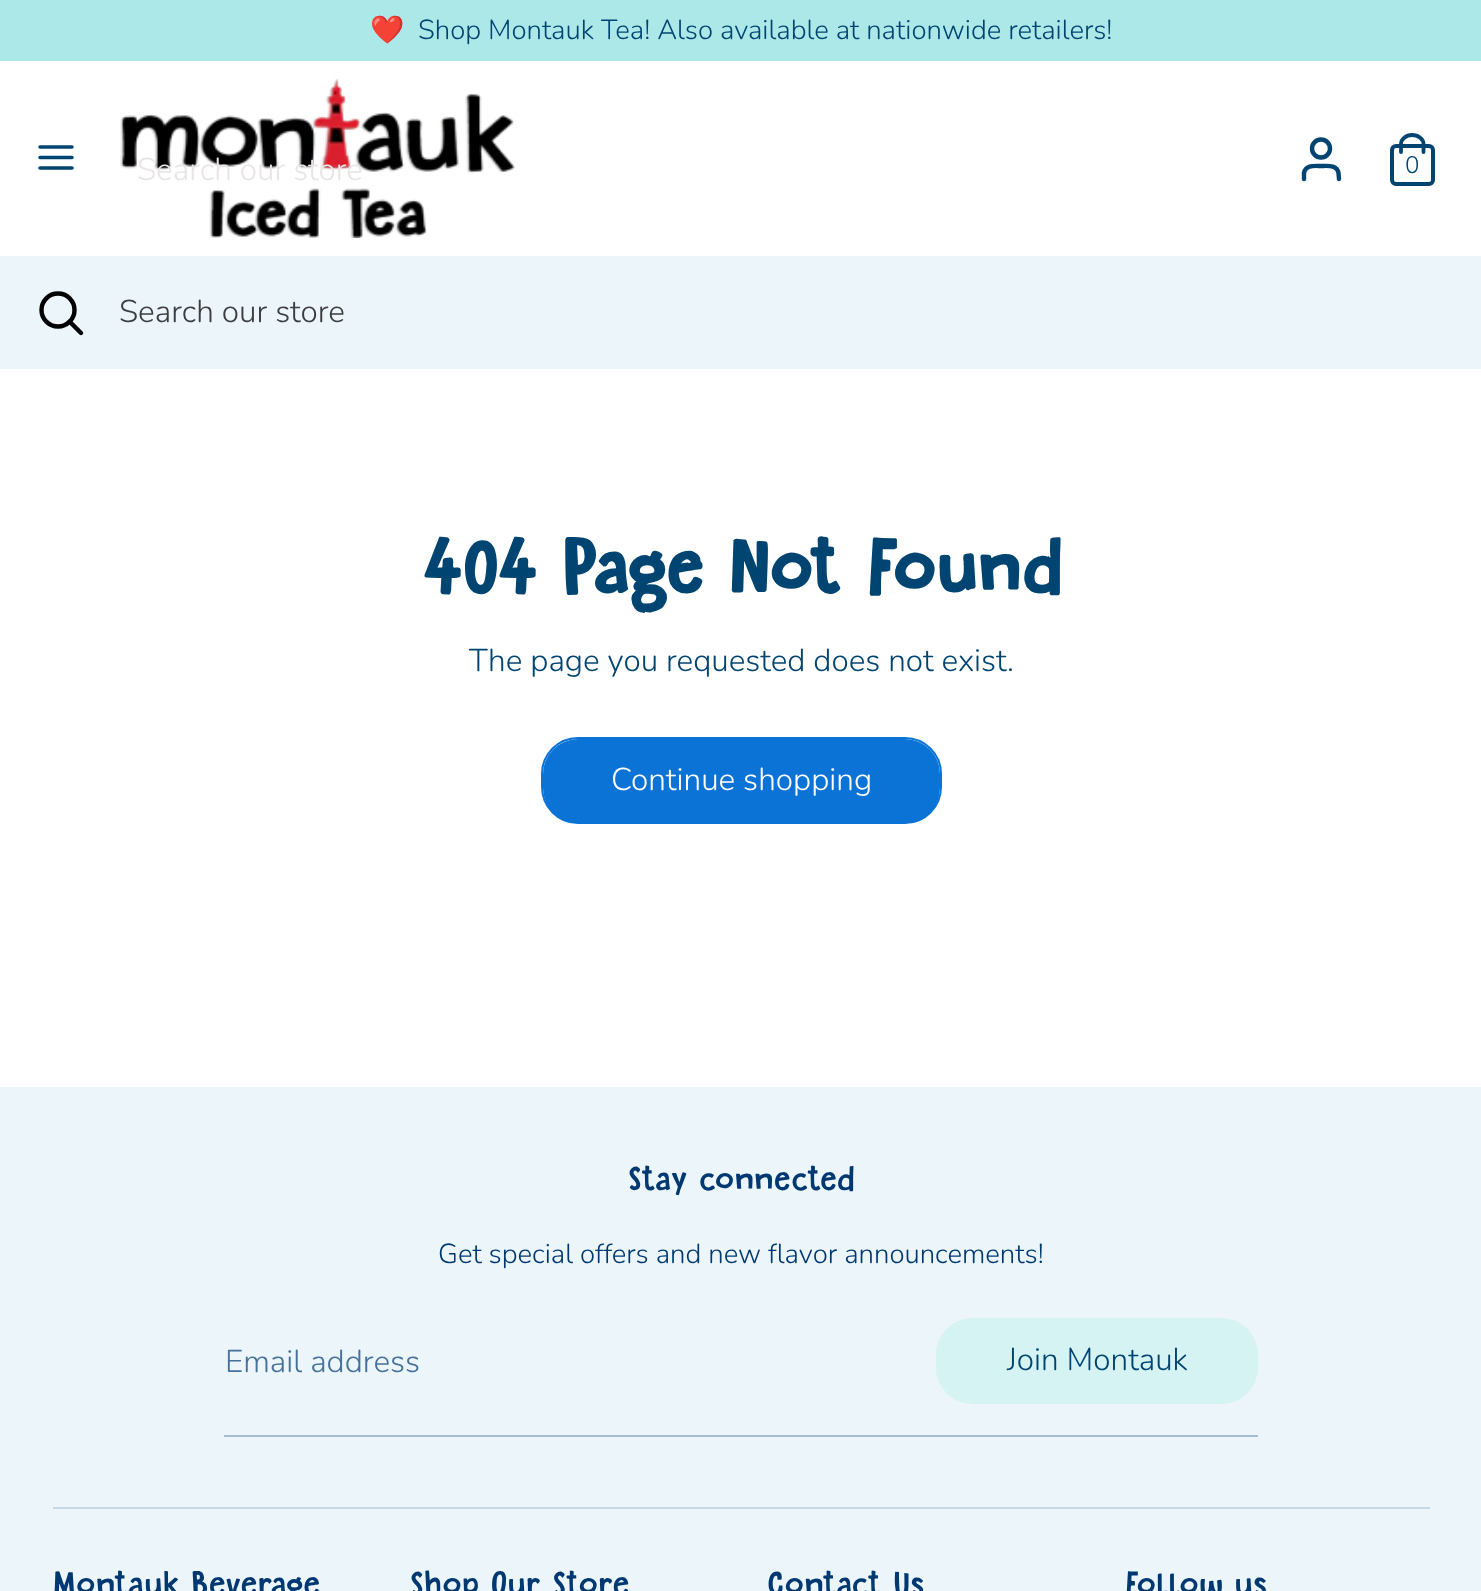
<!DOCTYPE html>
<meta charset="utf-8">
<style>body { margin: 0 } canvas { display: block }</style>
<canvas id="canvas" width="1481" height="1591"></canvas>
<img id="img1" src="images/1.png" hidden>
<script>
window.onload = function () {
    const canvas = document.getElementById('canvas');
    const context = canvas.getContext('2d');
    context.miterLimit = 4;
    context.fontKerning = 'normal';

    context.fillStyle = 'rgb(255, 255, 255)';
    context.fillRect(0, 0, 1481, 1591);
    context.fillStyle = 'rgb(173, 232, 232)';
    context.fillRect(0, 0, 1481, 61);
    context.fillStyle = 'rgb(235, 245, 250)';
    context.fillRect(0, 256, 1481, 113);
    context.beginPath();
    context.arc(58, 310, 16.5, 0, 2 * Math.PI);
    context.strokeStyle = 'rgb(0, 0, 0)';
    context.lineWidth = 4.4;
    context.stroke();
    context.beginPath();
    context.moveTo(81, 333);
    context.lineTo(69.5, 321.5);
    context.lineCap = 'round';
    context.stroke();
    context.beginPath();
    context.moveTo(40, 157.5);
    context.lineTo(72, 157.5);
    context.moveTo(40, 147);
    context.lineTo(72, 147);
    context.moveTo(40, 168);
    context.lineTo(72, 168);
    context.strokeStyle = 'rgb(0, 68, 113)';
    context.lineWidth = 3.5;
    context.stroke();
    context.drawImage(document.getElementById('img1'), 120, 78, 395, 160);
    context.beginPath();
    context.moveTo(1339, 179);
    context.lineTo(1338.5, 173);
    context.bezierCurveTo(1337, 164.5, 1327.5, 166, 1321, 166);
    context.bezierCurveTo(1315, 166, 1305.5, 164.5, 1304, 173);
    context.lineTo(1304, 179);
    context.lineWidth = 4.4;
    context.stroke();
    context.beginPath();
    context.arc(1321, 148.5, 9, 0, 2 * Math.PI);
    context.stroke();
    context.beginPath();
    context.roundRect(1392, 146, 41, 38, 4);
    context.lineWidth = 4;
    context.stroke();
    context.beginPath();
    context.moveTo(1401, 152);
    context.lineTo(1401, 144);
    context.bezierCurveTo(1401, 139.5, 1406, 135, 1412, 135);
    context.bezierCurveTo(1418.5, 135, 1423.5, 139.5, 1423.5, 144);
    context.lineTo(1423.5, 152);
    context.lineWidth = 3.8;
    context.stroke();
    context.beginPath();
    context.roundRect(542, 738, 399, 85, 36);
    context.strokeStyle = 'rgb(11, 114, 214)';
    context.lineWidth = 2;
    context.stroke();
    context.fillStyle = 'rgb(11, 114, 214)';
    context.beginPath();
    context.roundRect(543, 739, 397, 84, 35);
    context.fill();
    context.fillStyle = 'rgb(235, 245, 250)';
    context.fillRect(0, 1087, 1481, 504);
    context.fillStyle = 'rgb(165, 189, 209)';
    context.fillRect(224, 1435, 1034, 2);
    context.beginPath();
    context.roundRect(937, 1319, 320, 84, 36);
    context.strokeStyle = 'rgb(213, 243, 243)';
    context.stroke();
    context.fillStyle = 'rgb(213, 243, 243)';
    context.beginPath();
    context.roundRect(938, 1320, 319, 82, 35);
    context.fill();
    context.fillStyle = 'rgb(200, 217, 229)';
    context.fillRect(53, 1507, 1377, 2);
    context.font = '27.55px Noto Color Emoji';
    context.fillStyle = 'rgb(0, 68, 113)';
    context.fillText('❤️', 370, 39);
    context.font = '300 27.55px Nunito';
    context.fillText('Shop Montauk Tea! Also available at nationwide retailers!', 418, 39);
    context.font = '300 31.5px Nunito';
    context.fillStyle = 'rgb(234, 229, 229)';
    context.fillText('Search our store', 137, 180);
    context.fillStyle = 'rgb(59, 61, 63)';
    context.fillText('Search our store', 119, 322);
    context.font = '300 24px Nunito';
    context.fillStyle = 'rgb(0, 68, 113)';
    context.fillText('0', 1405, 173);
    context.font = 'bold 70.25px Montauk';
    context.fillText('404 Page Not Found', 421, 595);
    context.font = '300 31.5px Nunito';
    context.fillText('The page you requested does not exist.', 469, 671);
    context.fillStyle = 'rgb(255, 255, 255)';
    context.fillText('Continue shopping', 611, 790);
    context.font = '31.5px Montauk';
    context.fillStyle = 'rgb(0, 57, 113)';
    context.fillText('Stay connected', 628, 1191);
    context.font = '300 27.55px Nunito';
    context.fillText('Get special offers and new flavor announcements!', 438, 1263);
    context.font = '300 31.5px Nunito';
    context.fillStyle = 'rgb(71, 113, 154)';
    context.fillText('Email address', 225, 1372);
    context.fillStyle = 'rgb(0, 68, 113)';
    context.fillText('Join Montauk', 1007, 1370);
    context.font = '31.5px Montauk';
    context.fillStyle = 'rgb(0, 57, 113)';
    context.fillText('Montauk Beverage', 53, 1596);
    context.fillText('Shop Our Store', 410, 1596);
    context.fillText('Contact Us', 767, 1596);
    context.fillText('Follow us', 1125, 1596);
};
</script>
